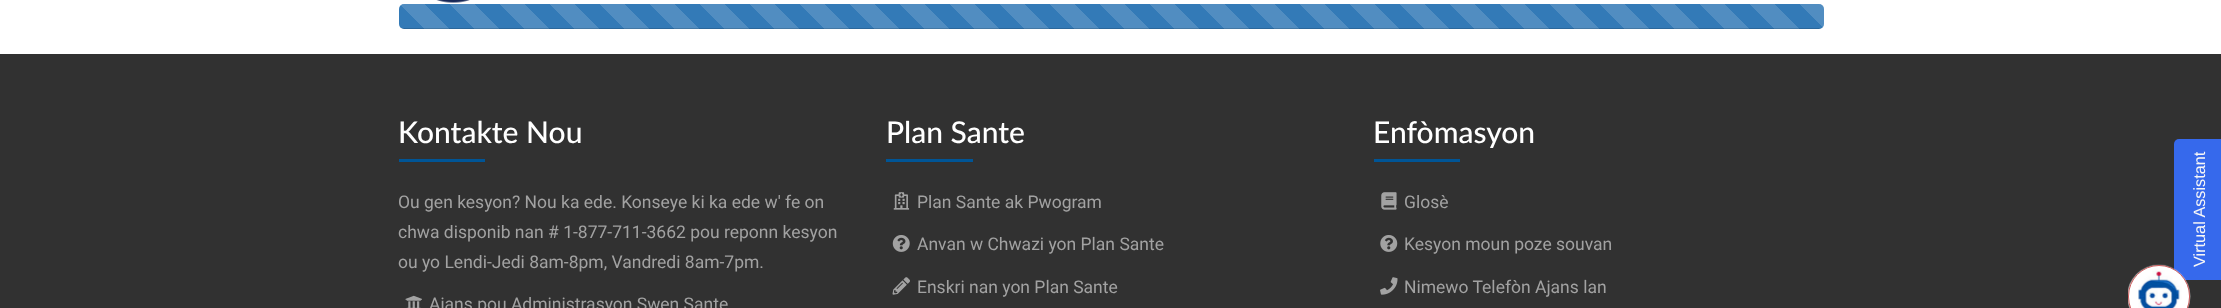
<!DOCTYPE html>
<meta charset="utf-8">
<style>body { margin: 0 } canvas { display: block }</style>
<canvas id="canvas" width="2221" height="308"></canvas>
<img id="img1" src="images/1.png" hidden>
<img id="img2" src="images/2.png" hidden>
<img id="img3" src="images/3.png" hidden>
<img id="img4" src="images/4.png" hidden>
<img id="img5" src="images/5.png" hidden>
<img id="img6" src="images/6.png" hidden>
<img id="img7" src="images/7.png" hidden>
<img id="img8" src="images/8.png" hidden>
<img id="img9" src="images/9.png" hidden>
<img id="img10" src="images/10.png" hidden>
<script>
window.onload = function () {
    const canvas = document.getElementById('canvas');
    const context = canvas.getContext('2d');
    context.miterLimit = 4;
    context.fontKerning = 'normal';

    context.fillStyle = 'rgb(255, 255, 255)';
    context.fillRect(0, 0, 2221, 308);
    context.drawImage(document.getElementById('img1'), 436, 0, 34, 3);
    context.fillStyle = 'rgb(51, 122, 183)';
    context.beginPath();
    context.roundRect(399, 4, 1425, 25, 5);
    context.fill();
    context.drawImage(document.getElementById('img2'), 401, 4, 1423, 25);
    context.save();
    context.beginPath();
    context.roundRect(399, 4, 1425, 25, 5);
    context.clip();
    context.fillStyle = 'rgba(0, 0, 0, 0.15)';
    context.fillRect(399, 28, 1425, 1);
    context.restore();
    context.fillStyle = 'rgb(49, 49, 49)';
    context.fillRect(0, 54, 2221, 254);
    context.fillStyle = 'rgb(0, 85, 150)';
    context.fillRect(399, 159, 86, 3);
    context.drawImage(document.getElementById('img3'), 405, 295, 17, 13);
    context.fillRect(886, 159, 87, 3);
    context.drawImage(document.getElementById('img4'), 893, 192, 17, 18);
    context.drawImage(document.getElementById('img5'), 892, 235, 18, 17);
    context.drawImage(document.getElementById('img6'), 892, 277, 18, 18);
    context.fillRect(1374, 159, 86, 3);
    context.drawImage(document.getElementById('img7'), 1381, 192, 16, 18);
    context.drawImage(document.getElementById('img8'), 1380, 235, 18, 17);
    context.drawImage(document.getElementById('img9'), 1380, 277, 18, 18);
    context.fillStyle = 'rgb(54, 105, 236)';
    context.beginPath();
    context.roundRect(2174, 139, 47, 141, [5, 0, 0, 5]);
    context.fill();
    context.drawImage(document.getElementById('img10'), 2128, 264, 63, 44);
    context.beginPath();
    context.roundRect(2128.5, 265.5, 61, 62, 30.5);
    context.strokeStyle = 'rgb(205, 92, 92)';
    context.stroke();
    context.font = '500 30px Lato';
    context.fillStyle = 'rgb(255, 255, 255)';
    context.fillText('Kontakte Nou', 398, 143);
    context.font = '17.5px Roboto';
    context.fillStyle = 'rgb(162, 162, 162)';
    context.fillText('Ou gen kesyon? Nou ka ede. Konseye ki ka ede w\' fe on', 398, 208);
    context.fillText('chwa disponib nan # 1-877-711-3662 pou reponn kesyon', 398, 238);
    context.fillText('ou yo Lendi-Jedi 8am-8pm, Vandredi 8am-7pm.', 398, 268);
    context.fillText('Ajans pou Administrasyon Swen Sante', 429, 310);
    context.font = '500 30px Lato';
    context.fillStyle = 'rgb(255, 255, 255)';
    context.fillText('Plan Sante', 886, 143);
    context.font = '17.5px Roboto';
    context.fillStyle = 'rgb(162, 162, 162)';
    context.fillText('Plan Sante ak Pwogram', 917, 208);
    context.fillText('Anvan w Chwazi yon Plan Sante', 917, 250);
    context.fillText('Enskri nan yon Plan Sante', 917, 293);
    context.font = '500 30px Lato';
    context.fillStyle = 'rgb(255, 255, 255)';
    context.fillText('Enfòmasyon', 1373, 143);
    context.font = '17.5px Roboto';
    context.fillStyle = 'rgb(162, 162, 162)';
    context.fillText('Glosè', 1404, 208);
    context.fillText('Kesyon moun poze souvan', 1404, 250);
    context.fillText('Nimewo Telefòn Ajans lan', 1404, 293);
    context.font = '16.25px Liberation Sans';
    context.fillStyle = 'rgb(247, 247, 247)';
    context.save();
    context.translate(2205, 267);
    context.rotate(-90 * Math.PI / 180);
    context.fillText('Virtual Assistant', 0, 0);
    context.restore();
};
</script>
